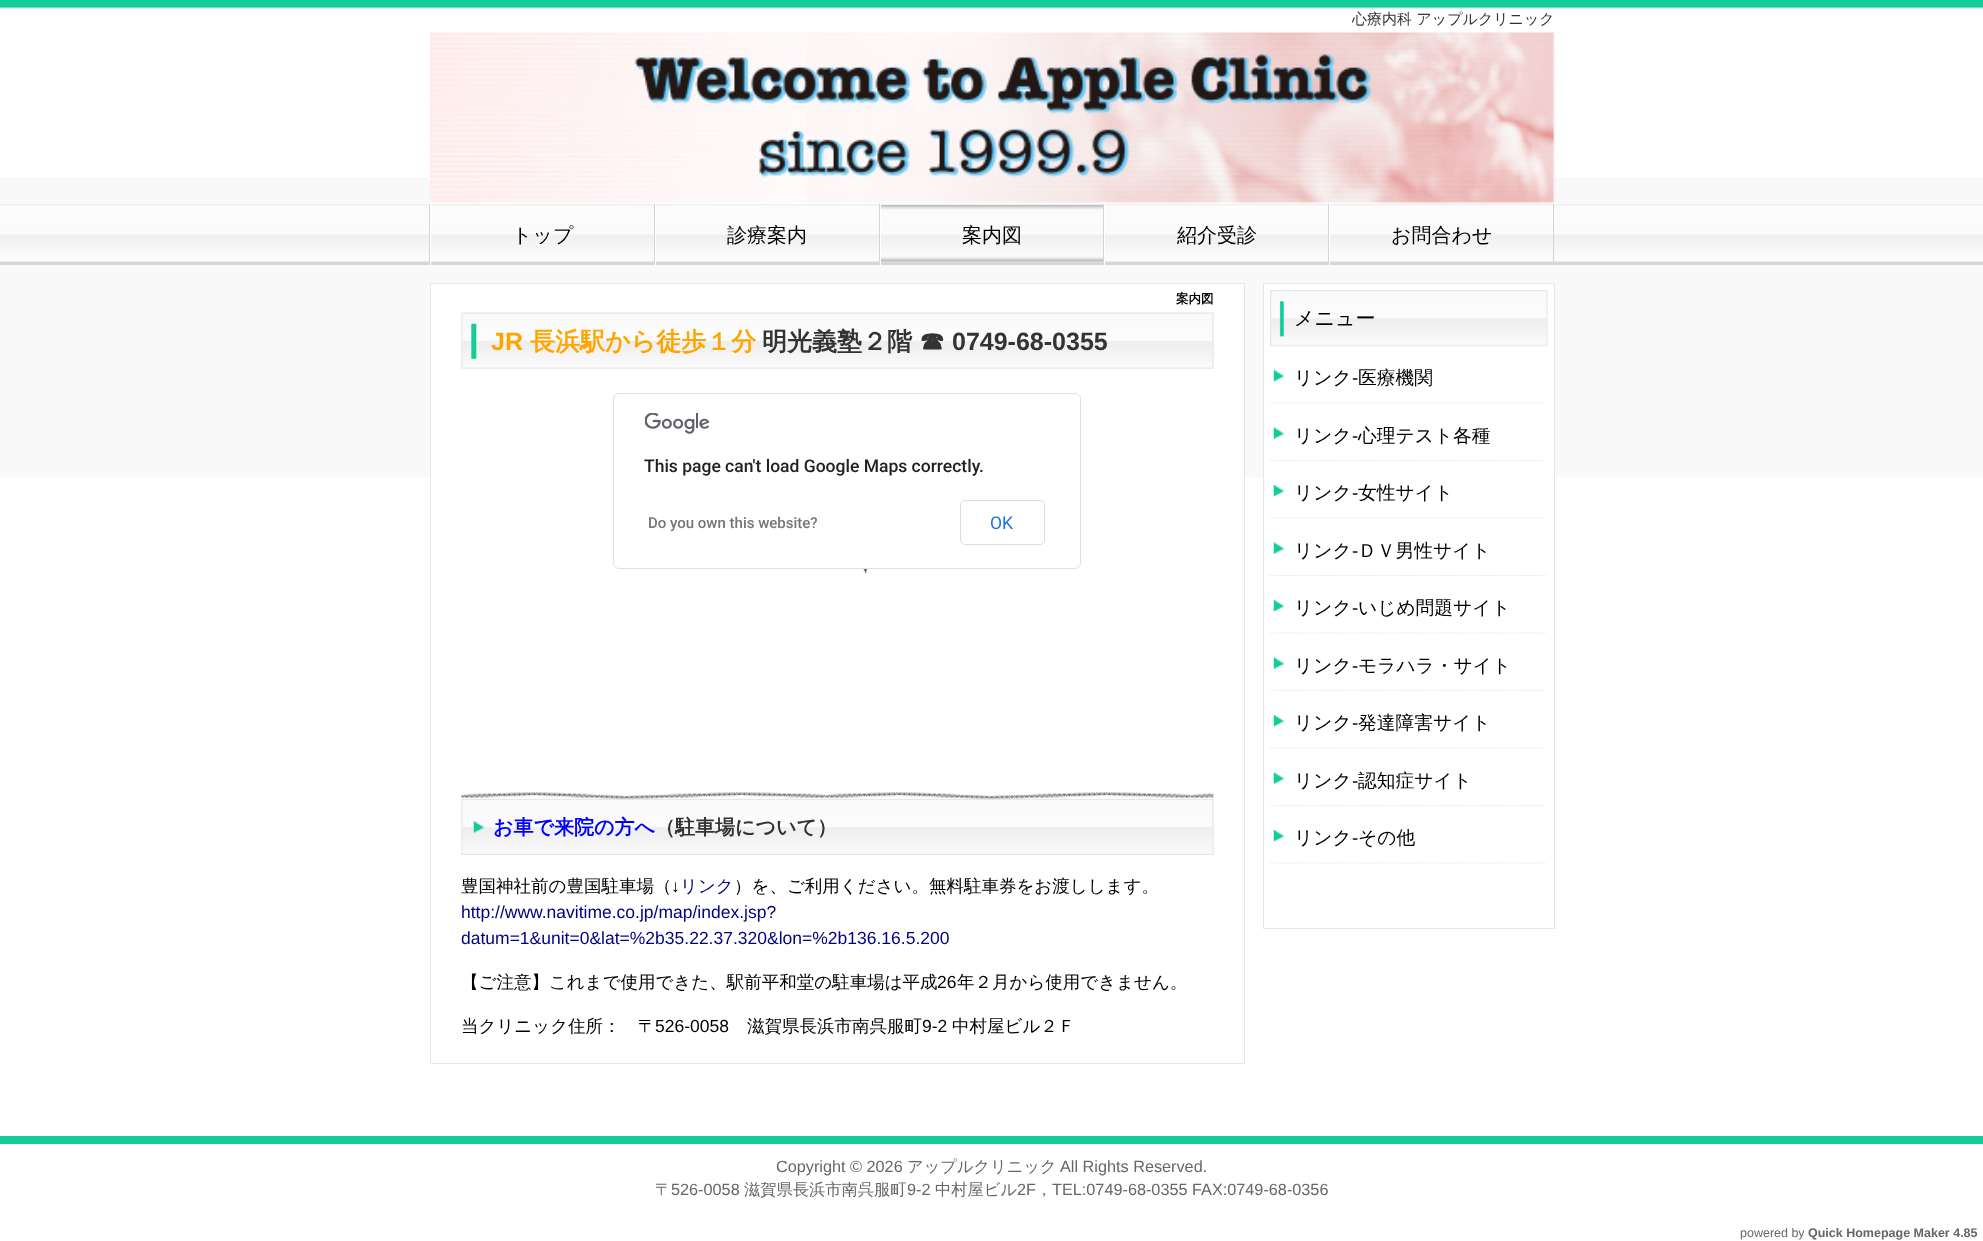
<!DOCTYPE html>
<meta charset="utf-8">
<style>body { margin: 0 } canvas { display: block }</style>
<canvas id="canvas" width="1983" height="1241"></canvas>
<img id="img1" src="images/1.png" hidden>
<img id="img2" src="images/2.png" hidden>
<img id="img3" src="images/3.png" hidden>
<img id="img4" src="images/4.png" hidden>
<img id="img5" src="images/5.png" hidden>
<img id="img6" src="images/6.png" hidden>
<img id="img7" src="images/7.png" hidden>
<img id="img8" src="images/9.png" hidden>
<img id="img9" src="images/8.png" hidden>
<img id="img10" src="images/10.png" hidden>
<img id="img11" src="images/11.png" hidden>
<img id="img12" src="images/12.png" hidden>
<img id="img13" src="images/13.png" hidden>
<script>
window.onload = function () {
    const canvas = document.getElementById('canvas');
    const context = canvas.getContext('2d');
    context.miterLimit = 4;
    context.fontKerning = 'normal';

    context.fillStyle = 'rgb(255, 255, 255)';
    context.fillRect(0, 0, 1983, 1241);
    context.drawImage(document.getElementById('img1'), 0, 0, 1983, 477);
    context.drawImage(document.getElementById('img2'), 430, 32, 1125, 172);
    context.drawImage(document.getElementById('img3'), 0, 204, 1983, 61);
    context.fillStyle = 'rgb(213, 213, 213)';
    context.fillRect(429, 204, 1, 61);
    context.fillRect(654, 204, 1, 61);
    context.fillStyle = 'rgb(255, 255, 255)';
    context.fillRect(430, 204, 1, 61);
    context.fillStyle = 'rgb(213, 213, 213)';
    context.fillRect(879, 204, 1, 61);
    context.fillStyle = 'rgb(255, 255, 255)';
    context.fillRect(655, 204, 1, 61);
    context.drawImage(document.getElementById('img4'), 881, 205, 222, 57);
    context.fillStyle = 'rgb(213, 213, 213)';
    context.fillRect(1103, 204, 1, 61);
    context.fillStyle = 'rgb(255, 255, 255)';
    context.fillRect(880, 204, 1, 61);
    context.fillStyle = 'rgb(213, 213, 213)';
    context.fillRect(1328, 204, 1, 61);
    context.fillStyle = 'rgb(255, 255, 255)';
    context.fillRect(1104, 204, 1, 61);
    context.fillStyle = 'rgb(213, 213, 213)';
    context.fillRect(1553, 204, 1, 61);
    context.fillStyle = 'rgb(255, 255, 255)';
    context.fillRect(1329, 204, 1, 61);
    context.fillRect(431, 284, 813, 193);
    context.strokeStyle = 'rgb(231, 231, 231)';
    context.strokeRect(430.5, 283.5, 814, 780);
    context.drawImage(document.getElementById('img5'), 461, 312, 753, 57);
    context.beginPath();
    context.roundRect(613.5, 393.5, 467, 175, 5.5);
    context.strokeStyle = 'rgb(224, 224, 224)';
    context.stroke();
    context.drawImage(document.getElementById('img6'), 645, 413, 65, 21);
    context.beginPath();
    context.roundRect(960.5, 500.5, 84, 44, 4.5);
    context.strokeStyle = 'rgb(218, 220, 224)';
    context.stroke();
    context.drawImage(document.getElementById('img7'), 863, 569, 5, 5);
    context.drawImage(document.getElementById('img8'), 461, 798, 753, 57);
    context.drawImage(document.getElementById('img9'), 461, 792, 753, 7);
    context.fillRect(1264, 284, 290, 193);
    context.strokeStyle = 'rgb(231, 231, 231)';
    context.strokeRect(1263.5, 283.5, 291, 645);
    context.drawImage(document.getElementById('img10'), 1270, 290, 278, 57);
    context.drawImage(document.getElementById('img11'), 1273, 370, 11, 12);
    context.beginPath();
    context.moveTo(1270, 403);
    context.lineTo(1547.5, 403);
    context.lineWidth = 1.2;
    context.setLineDash([1.25, 1.25]);
    context.stroke();
    context.drawImage(document.getElementById('img12'), 1273, 427, 11, 12);
    context.beginPath();
    context.moveTo(1270, 460.5);
    context.lineTo(1547.5, 460.5);
    context.stroke();
    context.drawImage(document.getElementById('img11'), 1273, 485, 11, 12);
    context.beginPath();
    context.moveTo(1270, 518);
    context.lineTo(1547.5, 518);
    context.stroke();
    context.drawImage(document.getElementById('img12'), 1273, 542, 11, 12);
    context.beginPath();
    context.moveTo(1270, 575.5);
    context.lineTo(1547.5, 575.5);
    context.stroke();
    context.drawImage(document.getElementById('img11'), 1273, 600, 11, 12);
    context.beginPath();
    context.moveTo(1270, 633);
    context.lineTo(1547.5, 633);
    context.stroke();
    context.drawImage(document.getElementById('img12'), 1273, 657, 11, 12);
    context.beginPath();
    context.moveTo(1270, 690.5);
    context.lineTo(1547.5, 690.5);
    context.stroke();
    context.drawImage(document.getElementById('img11'), 1273, 715, 11, 12);
    context.beginPath();
    context.moveTo(1270, 748);
    context.lineTo(1547.5, 748);
    context.stroke();
    context.drawImage(document.getElementById('img13'), 1273, 772, 11, 12);
    context.beginPath();
    context.moveTo(1270, 805.5);
    context.lineTo(1547.5, 805.5);
    context.stroke();
    context.drawImage(document.getElementById('img11'), 1273, 830, 11, 12);
    context.beginPath();
    context.moveTo(1270, 863);
    context.lineTo(1547.5, 863);
    context.stroke();
    context.fillStyle = 'rgb(20, 204, 154)';
    context.fillRect(0, 1136, 1983, 8);
    context.font = '500 15px WenQuanYi Zen Hei';
    context.fillStyle = 'rgb(51, 51, 51)';
    context.fillText('心療内科 アップルクリニック', 1352, 24);
    context.font = '500 20px WenQuanYi Zen Hei';
    context.fillStyle = 'rgb(0, 0, 0)';
    context.fillText('トップ', 512, 242);
    context.fillText('診療案内', 727, 242);
    context.fillText('案内図', 962, 242);
    context.fillText('紹介受診', 1177, 242);
    context.fillText('お問合わせ', 1391, 242);
    context.font = 'bold 12.5px WenQuanYi Zen Hei';
    context.fillText('案内図', 1176, 303);
    context.font = 'bold 25px Liberation Sans';
    context.fillStyle = 'rgb(255, 165, 0)';
    context.fillText('JR', 491, 350);
    context.font = 'bold 25px WenQuanYi Zen Hei';
    context.fillText('長浜駅から徒歩１分', 530, 350);
    context.fillStyle = 'rgb(51, 51, 51)';
    context.fillText('明光義塾２階 ☎', 762, 350);
    context.font = 'bold 25px Liberation Sans';
    context.fillText('0749-68-0355', 952, 350);
    context.font = '500 17.5px Roboto';
    context.fillStyle = 'rgb(33, 33, 33)';
    context.fillText('This page can\'t load Google Maps correctly.', 644, 472);
    context.font = '500 15px Roboto';
    context.fillStyle = 'rgb(117, 117, 117)';
    context.fillText('Do you own this website?', 648, 528);
    context.font = '17.5px Roboto';
    context.fillStyle = 'rgb(26, 115, 232)';
    context.fillText('OK', 990, 529);
    context.font = 'bold 20px WenQuanYi Zen Hei';
    context.fillStyle = 'rgb(0, 0, 255)';
    context.fillText('お車で来院の方へ', 493, 834);
    context.fillStyle = 'rgb(51, 51, 51)';
    context.fillText('（駐車場について）', 655, 834);
    context.font = '500 17.5px WenQuanYi Zen Hei';
    context.fillStyle = 'rgb(0, 0, 0)';
    context.fillText('豊国神社前の豊国駐車場（', 461, 892);
    context.font = '17.5px Liberation Sans';
    context.fillText('↓', 671, 892);
    context.font = '500 17.5px WenQuanYi Zen Hei';
    context.fillStyle = 'rgb(0, 0, 128)';
    context.fillText('リンク', 680, 892);
    context.fillStyle = 'rgb(0, 0, 0)';
    context.fillText('）を、ご利用ください。無料駐車券をお渡しします。', 734, 892);
    context.font = '17.5px Liberation Sans';
    context.fillStyle = 'rgb(0, 0, 128)';
    context.fillText('http://www.navitime.co.jp/map/index.jsp?', 461, 918);
    context.fillText('datum=1&unit=0&lat=%2b35.22.37.320&lon=%2b136.16.5.200', 461, 944);
    context.font = '500 17.5px WenQuanYi Zen Hei';
    context.fillStyle = 'rgb(0, 0, 0)';
    context.fillText('【ご注意】これまで使用できた、駅前平和堂の駐車場は平成', 461, 988);
    context.font = '17.5px Liberation Sans';
    context.fillText('26', 937, 988);
    context.font = '500 17.5px WenQuanYi Zen Hei';
    context.fillText('年２月から使用できません。', 957, 988);
    context.fillText('当クリニック住所：　〒', 461, 1032);
    context.font = '17.5px Liberation Sans';
    context.fillText('526-0058', 655, 1032);
    context.font = '500 17.5px WenQuanYi Zen Hei';
    context.fillText('滋賀県長浜市南呉服町', 747, 1032);
    context.font = '17.5px Liberation Sans';
    context.fillText('9-2', 922, 1032);
    context.font = '500 17.5px WenQuanYi Zen Hei';
    context.fillText('中村屋ビル２Ｆ', 952, 1032);
    context.font = '500 20px WenQuanYi Zen Hei';
    context.fillText('メニュー', 1294, 325);
    context.font = '500 18.75px WenQuanYi Zen Hei';
    context.fillText('リンク', 1294, 384);
    context.font = '18.75px Liberation Sans';
    context.fillText('-', 1352, 384);
    context.font = '500 18.75px WenQuanYi Zen Hei';
    context.fillText('医療機関', 1358, 384);
    context.fillText('リンク', 1294, 442);
    context.font = '18.75px Liberation Sans';
    context.fillText('-', 1352, 442);
    context.font = '500 18.75px WenQuanYi Zen Hei';
    context.fillText('心理テスト各種', 1358, 442);
    context.fillText('リンク', 1294, 499);
    context.font = '18.75px Liberation Sans';
    context.fillText('-', 1352, 499);
    context.font = '500 18.75px WenQuanYi Zen Hei';
    context.fillText('女性サイト', 1358, 499);
    context.fillText('リンク', 1294, 557);
    context.font = '18.75px Liberation Sans';
    context.fillText('-', 1352, 557);
    context.font = '500 18.75px WenQuanYi Zen Hei';
    context.fillText('ＤＶ男性サイト', 1358, 557);
    context.fillText('リンク', 1294, 614);
    context.font = '18.75px Liberation Sans';
    context.fillText('-', 1352, 614);
    context.font = '500 18.75px WenQuanYi Zen Hei';
    context.fillText('いじめ問題サイト', 1358, 614);
    context.fillText('リンク', 1294, 672);
    context.font = '18.75px Liberation Sans';
    context.fillText('-', 1352, 672);
    context.font = '500 18.75px WenQuanYi Zen Hei';
    context.fillText('モラハラ・サイト', 1358, 672);
    context.fillText('リンク', 1294, 729);
    context.font = '18.75px Liberation Sans';
    context.fillText('-', 1352, 729);
    context.font = '500 18.75px WenQuanYi Zen Hei';
    context.fillText('発達障害サイト', 1358, 729);
    context.fillText('リンク', 1294, 787);
    context.font = '18.75px Liberation Sans';
    context.fillText('-', 1352, 787);
    context.font = '500 18.75px WenQuanYi Zen Hei';
    context.fillText('認知症サイト', 1358, 787);
    context.fillText('リンク', 1294, 844);
    context.font = '18.75px Liberation Sans';
    context.fillText('-', 1352, 844);
    context.font = '500 18.75px WenQuanYi Zen Hei';
    context.fillText('その他', 1358, 844);
    context.font = '16.25px Liberation Sans';
    context.fillStyle = 'rgb(102, 102, 102)';
    context.fillText('Copyright © 2026', 776, 1172);
    context.font = '500 16.25px WenQuanYi Zen Hei';
    context.fillText('アップルクリニック', 907, 1172);
    context.font = '16.25px Liberation Sans';
    context.fillText('All Rights Reserved.', 1060, 1172);
    context.font = '500 16.25px WenQuanYi Zen Hei';
    context.fillText('〒', 655, 1195);
    context.font = '16.25px Liberation Sans';
    context.fillText('526-0058', 671, 1195);
    context.font = '500 16.25px WenQuanYi Zen Hei';
    context.fillText('滋賀県長浜市南呉服町', 744, 1195);
    context.font = '16.25px Liberation Sans';
    context.fillText('9-2', 907, 1195);
    context.font = '500 16.25px WenQuanYi Zen Hei';
    context.fillText('中村屋ビル', 935, 1195);
    context.font = '16.25px Liberation Sans';
    context.fillText('2F', 1017, 1195);
    context.font = '500 16.25px WenQuanYi Zen Hei';
    context.fillText('，', 1036, 1195);
    context.font = '16.25px Liberation Sans';
    context.fillText('TEL:0749-68-0355 FAX:0749-68-0356', 1052, 1195);
    context.font = '12.5px Liberation Sans';
    context.fillText('powered by', 1740, 1237);
    context.font = 'bold 12.5px Liberation Sans';
    context.fillText('Quick Homepage Maker 4.85', 1808, 1237);
};
</script>
